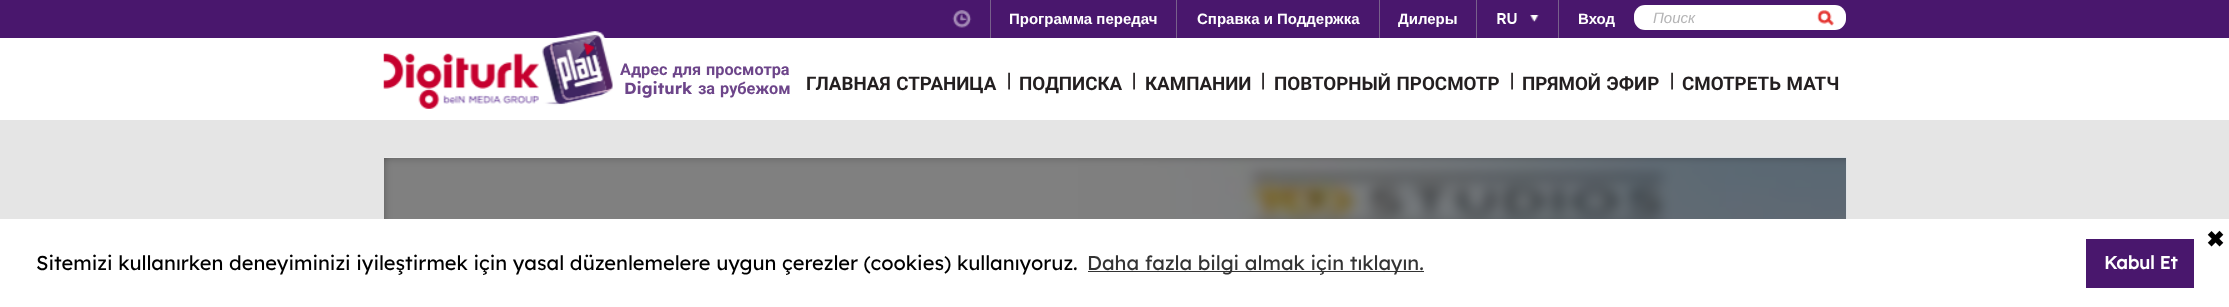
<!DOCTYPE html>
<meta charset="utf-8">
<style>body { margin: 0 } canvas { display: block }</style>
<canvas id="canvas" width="2229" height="307"></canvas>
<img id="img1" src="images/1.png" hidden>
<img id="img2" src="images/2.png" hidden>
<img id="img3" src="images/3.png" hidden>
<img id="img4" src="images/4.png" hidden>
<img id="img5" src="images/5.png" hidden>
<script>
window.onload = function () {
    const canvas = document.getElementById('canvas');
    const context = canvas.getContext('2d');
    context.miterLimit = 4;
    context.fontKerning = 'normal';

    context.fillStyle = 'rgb(229, 229, 229)';
    context.fillRect(0, 0, 2229, 307);
    context.fillStyle = 'rgb(73, 23, 109)';
    context.fillRect(0, 0, 2229, 38);
    context.fillStyle = 'rgb(120, 96, 139)';
    context.fillRect(990, 0, 1, 38);
    context.drawImage(document.getElementById('img1'), 952, 10, 20, 18);
    context.fillRect(1176, 0, 1, 38);
    context.fillRect(1379, 0, 1, 38);
    context.fillRect(1476, 0, 1, 38);
    context.fillRect(1558, 0, 1, 38);
    context.drawImage(document.getElementById('img2'), 1530, 15, 9, 7);
    context.fillStyle = 'rgb(255, 255, 255)';
    context.beginPath();
    context.roundRect(1634, 5, 212, 25, 11);
    context.fill();
    context.drawImage(document.getElementById('img3'), 1817, 10, 17, 16);
    context.fillRect(0, 38, 2229, 82);
    context.drawImage(document.getElementById('img4'), 383, 31, 230, 78);
    context.fillStyle = 'rgb(0, 0, 0)';
    context.fillRect(384, 158, 1462, 61);
    context.drawImage(document.getElementById('img5'), 384, 157, 1463, 62);
    context.fillStyle = 'rgb(255, 255, 255)';
    context.fillRect(0, 219, 2229, 88);
    context.fillStyle = 'rgb(51, 51, 51)';
    context.fillRect(1088, 271, 336, 1);
    context.fillStyle = 'rgb(73, 23, 109)';
    context.fillRect(2086, 239, 108, 49);
    context.font = 'bold 15px Liberation Sans';
    context.fillStyle = 'rgb(255, 255, 255)';
    context.fillText('Программа передач', 1009, 24);
    context.fillText('Справка и Поддержка', 1197, 24);
    context.fillText('Дилеры', 1398, 24);
    context.font = 'bold 15px Lexend Deca';
    context.fillText('RU', 1496, 24);
    context.font = 'bold 15px Liberation Sans';
    context.fillText('Вход', 1578, 24);
    context.font = 'italic 15px Liberation Sans';
    context.fillStyle = 'rgb(180, 180, 181)';
    context.fillText('Поиск', 1653, 23);
    context.wordSpacing = '1px';
    context.font = 'bold 16.25px Roboto';
    context.fillStyle = 'rgb(109, 69, 138)';
    context.fillText('Адрес для просмотра', 620, 75);
    context.wordSpacing = '0px';
    context.font = 'bold 16.25px "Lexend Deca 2"';
    context.fillText('Digiturk', 624, 94);
    context.wordSpacing = '1px';
    context.font = 'bold 16.25px Roboto';
    context.fillText('за рубежом', 698, 94);
    context.font = 'bold 18.75px Roboto';
    context.fillStyle = 'rgb(35, 31, 32)';
    context.fillText('ГЛАВНАЯ СТРАНИЦА', 806, 90);
    context.wordSpacing = '0px';
    context.font = '18px Lexend Deca';
    context.fillText('|', 1007, 86);
    context.font = 'bold 18.75px Roboto';
    context.fillText('ПОДПИСКА', 1019, 90);
    context.font = '18px Lexend Deca';
    context.fillText('|', 1132, 86);
    context.font = 'bold 18.75px Roboto';
    context.fillText('КАМПАНИИ', 1145, 90);
    context.font = '18px Lexend Deca';
    context.fillText('|', 1261, 86);
    context.wordSpacing = '1px';
    context.font = 'bold 18.75px Roboto';
    context.fillText('ПОВТОРНЫЙ ПРОСМОТР', 1274, 90);
    context.wordSpacing = '0px';
    context.font = '18px Lexend Deca';
    context.fillText('|', 1510, 86);
    context.wordSpacing = '1px';
    context.font = 'bold 18.75px Roboto';
    context.fillText('ПРЯМОЙ ЭФИР', 1522, 90);
    context.wordSpacing = '0px';
    context.font = '18px Lexend Deca';
    context.fillText('|', 1670, 86);
    context.wordSpacing = '1px';
    context.font = 'bold 18.75px Roboto';
    context.fillText('СМОТРЕТЬ МАТЧ', 1682, 90);
    context.wordSpacing = '0px';
    context.font = '20px Lexend Deca';
    context.fillStyle = 'rgb(0, 0, 0)';
    context.fillText('Sitemizi kullanırken deneyiminizi iyileştirmek için yasal düzenlemelere uygun çerezler (cookies) kullanıyoruz.', 36, 270);
    context.fillStyle = 'rgb(51, 51, 51)';
    context.fillText('Daha fazla bilgi almak için tıklayın.', 1087, 270);
    context.font = 'bold 22px DejaVu Sans';
    context.fillStyle = 'rgb(0, 0, 0)';
    context.fillText('✖', 2206, 247);
    context.font = 'bold 18px Lexend Deca';
    context.fillStyle = 'rgb(255, 255, 255)';
    context.fillText('Kabul Et', 2104, 269);
};
</script>
